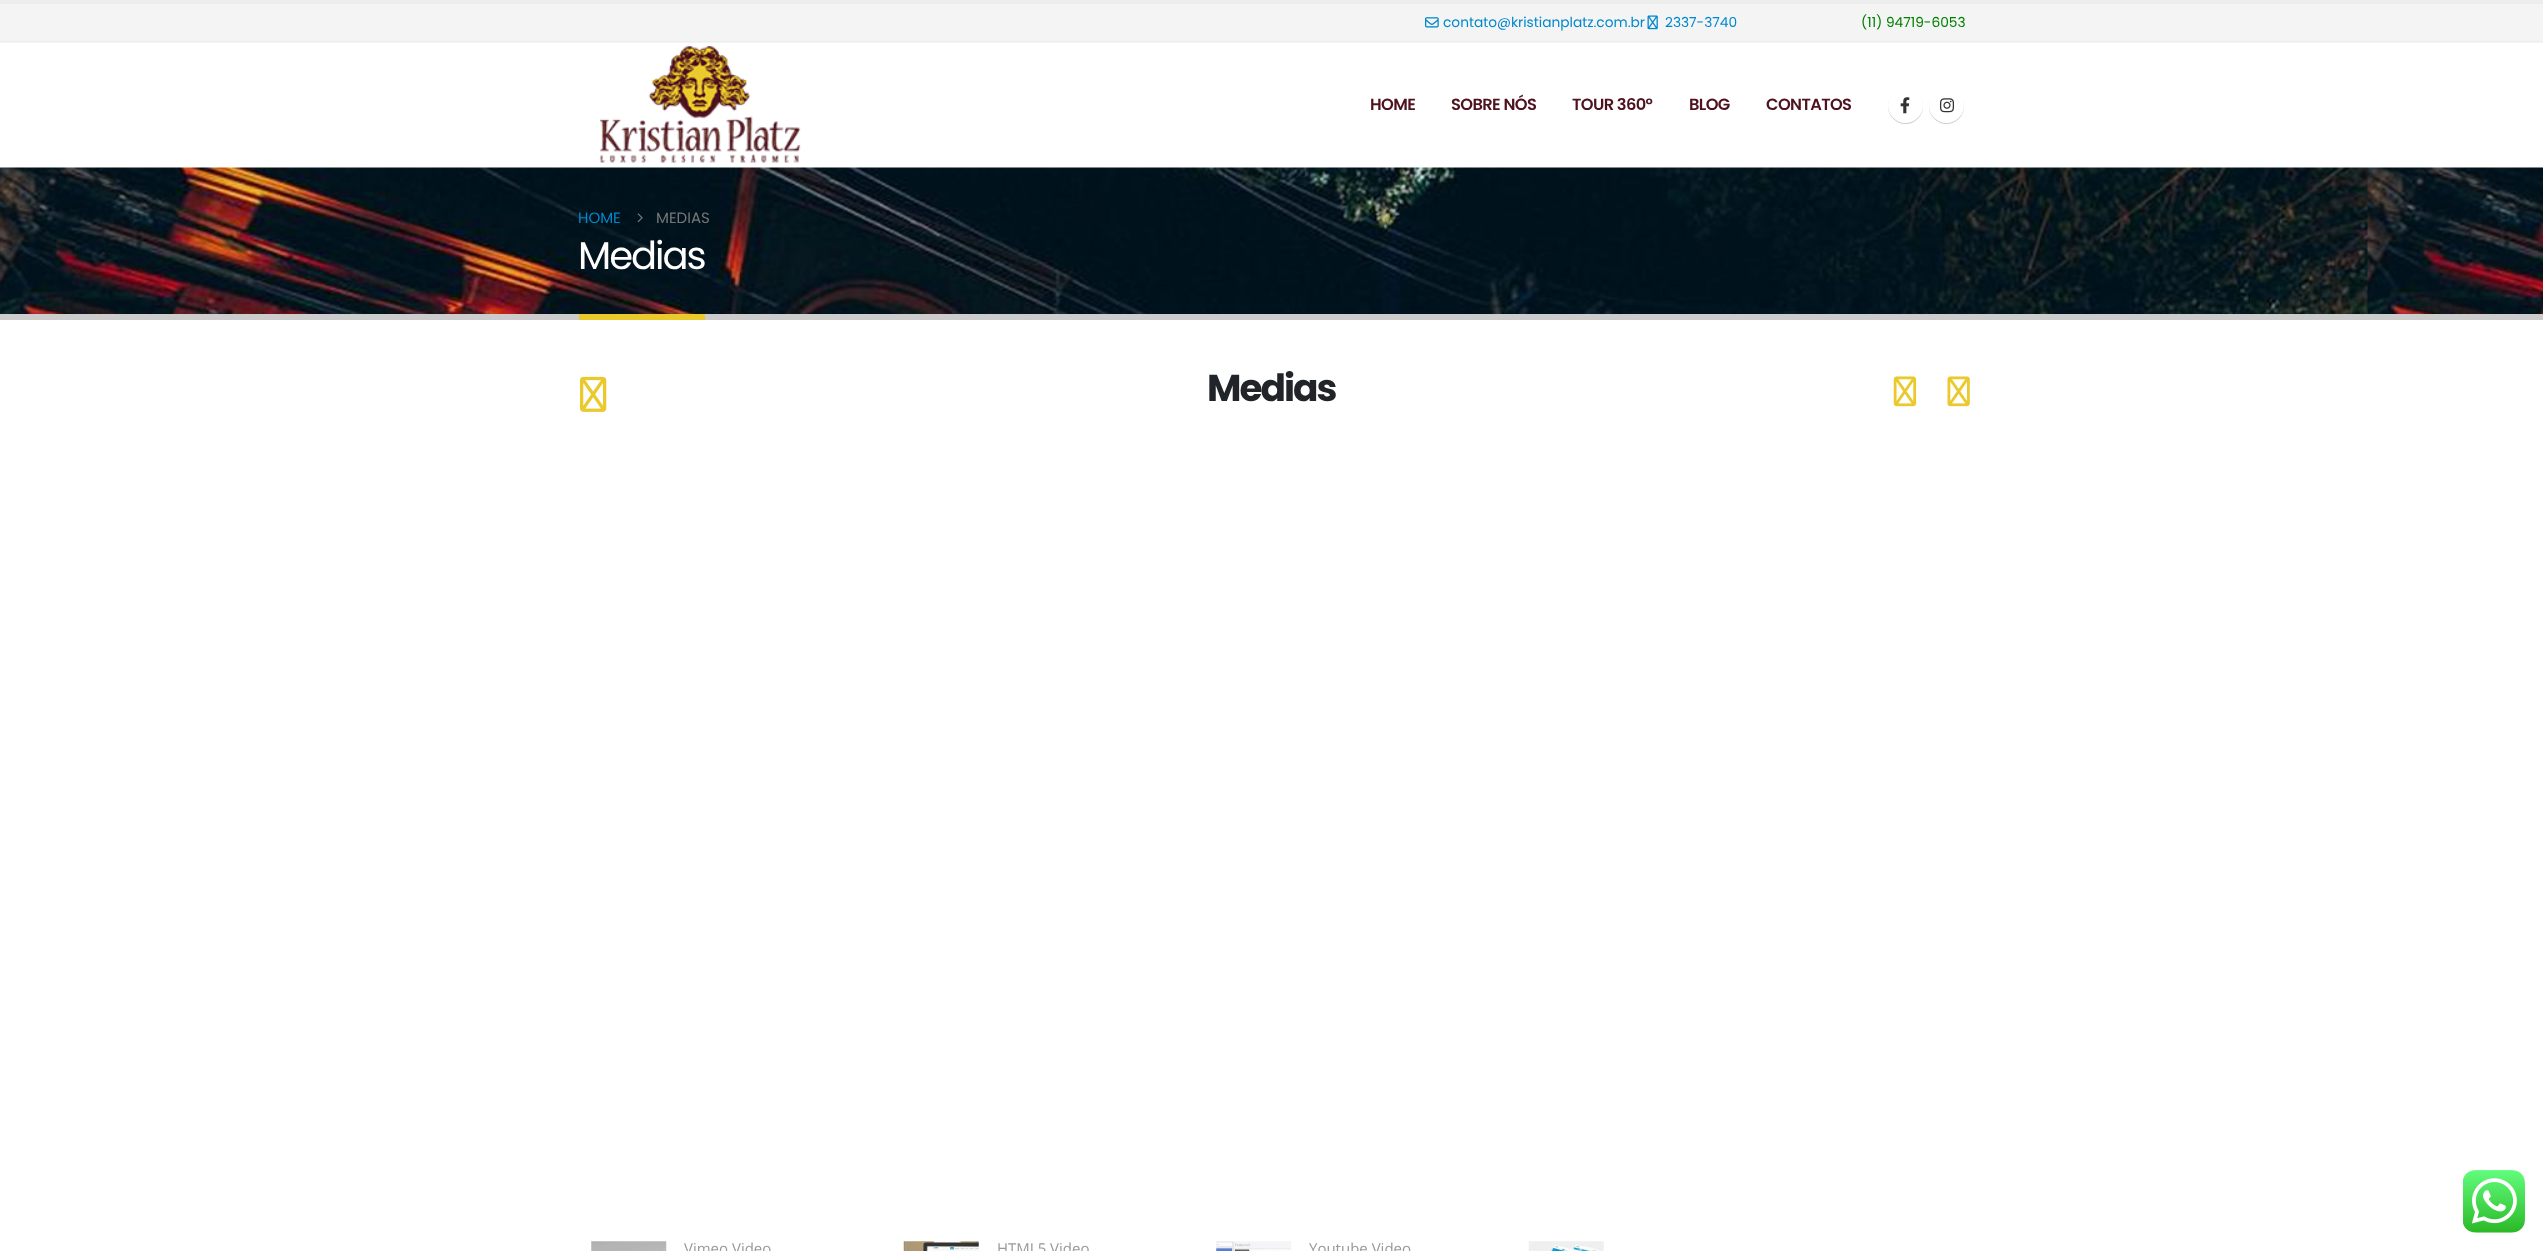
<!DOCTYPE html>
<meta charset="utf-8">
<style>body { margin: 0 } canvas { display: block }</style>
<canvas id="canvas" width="2543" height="1251"></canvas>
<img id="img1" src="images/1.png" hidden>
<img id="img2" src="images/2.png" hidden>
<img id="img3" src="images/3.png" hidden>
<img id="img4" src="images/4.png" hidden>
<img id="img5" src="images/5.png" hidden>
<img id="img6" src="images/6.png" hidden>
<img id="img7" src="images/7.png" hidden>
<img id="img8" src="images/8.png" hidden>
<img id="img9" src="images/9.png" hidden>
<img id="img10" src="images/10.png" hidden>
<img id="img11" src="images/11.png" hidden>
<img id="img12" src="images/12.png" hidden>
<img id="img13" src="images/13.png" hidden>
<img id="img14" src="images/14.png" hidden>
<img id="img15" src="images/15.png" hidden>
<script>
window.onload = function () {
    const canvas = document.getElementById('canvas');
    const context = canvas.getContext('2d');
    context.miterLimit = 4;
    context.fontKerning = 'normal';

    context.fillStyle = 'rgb(255, 255, 255)';
    context.fillRect(0, 0, 2543, 1251);
    context.fillStyle = 'rgb(237, 237, 237)';
    context.fillRect(0, 0, 2543, 4);
    context.fillStyle = 'rgb(244, 244, 244)';
    context.fillRect(0, 4, 2543, 39);
    context.fillStyle = 'rgb(237, 237, 237)';
    context.fillRect(0, 41, 2543, 1);
    context.drawImage(document.getElementById('img1'), 1425, 17, 14, 11);
    context.drawImage(document.getElementById('img2'), 1647, 15, 11, 15);
    context.drawImage(document.getElementById('img3'), 599, 46, 202, 117);
    context.fillStyle = 'rgba(0, 0, 0, 0.2)';
    context.filter = 'blur(0.5px)';
    context.beginPath();
    context.roundRect(1888, 89, 35, 35, 17.5);
    context.fill();
    context.filter = 'none';
    context.fillStyle = 'rgb(255, 255, 255)';
    context.beginPath();
    context.arc(1905.5, 105.5, 17.5, 0, 2 * Math.PI);
    context.fill();
    context.drawImage(document.getElementById('img4'), 1900, 97, 10, 17);
    context.fillStyle = 'rgba(0, 0, 0, 0.2)';
    context.filter = 'blur(0.5px)';
    context.beginPath();
    context.roundRect(1929, 89, 35, 35, 17.5);
    context.fill();
    context.filter = 'none';
    context.fillStyle = 'rgb(255, 255, 255)';
    context.beginPath();
    context.arc(1946.5, 105.5, 17.5, 0, 2 * Math.PI);
    context.fill();
    context.drawImage(document.getElementById('img5'), 1940, 98, 14, 15);
    context.drawImage(document.getElementById('img6'), 0, 167, 2543, 147);
    context.fillStyle = 'rgb(204, 204, 204)';
    context.fillRect(0, 314, 2543, 6);
    context.drawImage(document.getElementById('img7'), 637, 213, 6, 10);
    context.fillStyle = 'rgb(234, 201, 44)';
    context.fillRect(579, 314, 126, 6);
    context.drawImage(document.getElementById('img8'), 580, 376, 27, 36);
    context.drawImage(document.getElementById('img9'), 1893, 376, 24, 31);
    context.drawImage(document.getElementById('img10'), 1947, 376, 23, 31);
    context.drawImage(document.getElementById('img11'), 591, 1241, 76, 10);
    context.drawImage(document.getElementById('img12'), 903, 1241, 76, 10);
    context.drawImage(document.getElementById('img13'), 1216, 1241, 76, 10);
    context.drawImage(document.getElementById('img14'), 1528, 1241, 76, 10);
    context.drawImage(document.getElementById('img15'), 2463, 1170, 62, 63);
    context.font = '13.75px Poppins';
    context.fillStyle = 'rgb(0, 136, 204)';
    context.fillText('contato@kristianplatz.com.br', 1443, 27);
    context.fillText('2337-3740', 1665, 27);
    context.fillStyle = 'rgb(0, 128, 0)';
    context.fillText('(11) 94719-6053', 1861, 27);
    context.letterSpacing = '-0.6px';
    context.font = '600 16.25px Poppins';
    context.fillStyle = 'rgb(78, 19, 30)';
    context.fillText('HOME', 1370, 110);
    context.fillText('SOBRE NÓS', 1451, 110);
    context.fillText('TOUR 360º', 1572, 110);
    context.fillText('BLOG', 1689, 110);
    context.fillText('CONTATOS', 1766, 110);
    context.letterSpacing = '0px';
    context.font = '15px Poppins';
    context.fillStyle = 'rgb(0, 136, 204)';
    context.fillText('HOME', 578, 223);
    context.fillStyle = 'rgb(119, 119, 119)';
    context.fillText('MEDIAS', 656, 223);
    context.letterSpacing = '-2px';
    context.font = '38.5px Poppins';
    context.fillStyle = 'rgb(255, 255, 255)';
    context.fillText('Medias', 578, 269);
    context.font = 'bold 37.5px Poppins';
    context.fillStyle = 'rgb(33, 37, 41)';
    context.fillText('Medias', 1207, 401);
    context.letterSpacing = '0px';
    context.font = '15px Open Sans';
    context.fillStyle = 'rgb(153, 153, 153)';
    context.fillText('Vimeo Video', 684, 1254);
    context.fillText('HTML5 Video', 997, 1254);
    context.fillText('Youtube Video', 1309, 1254);
};
</script>
